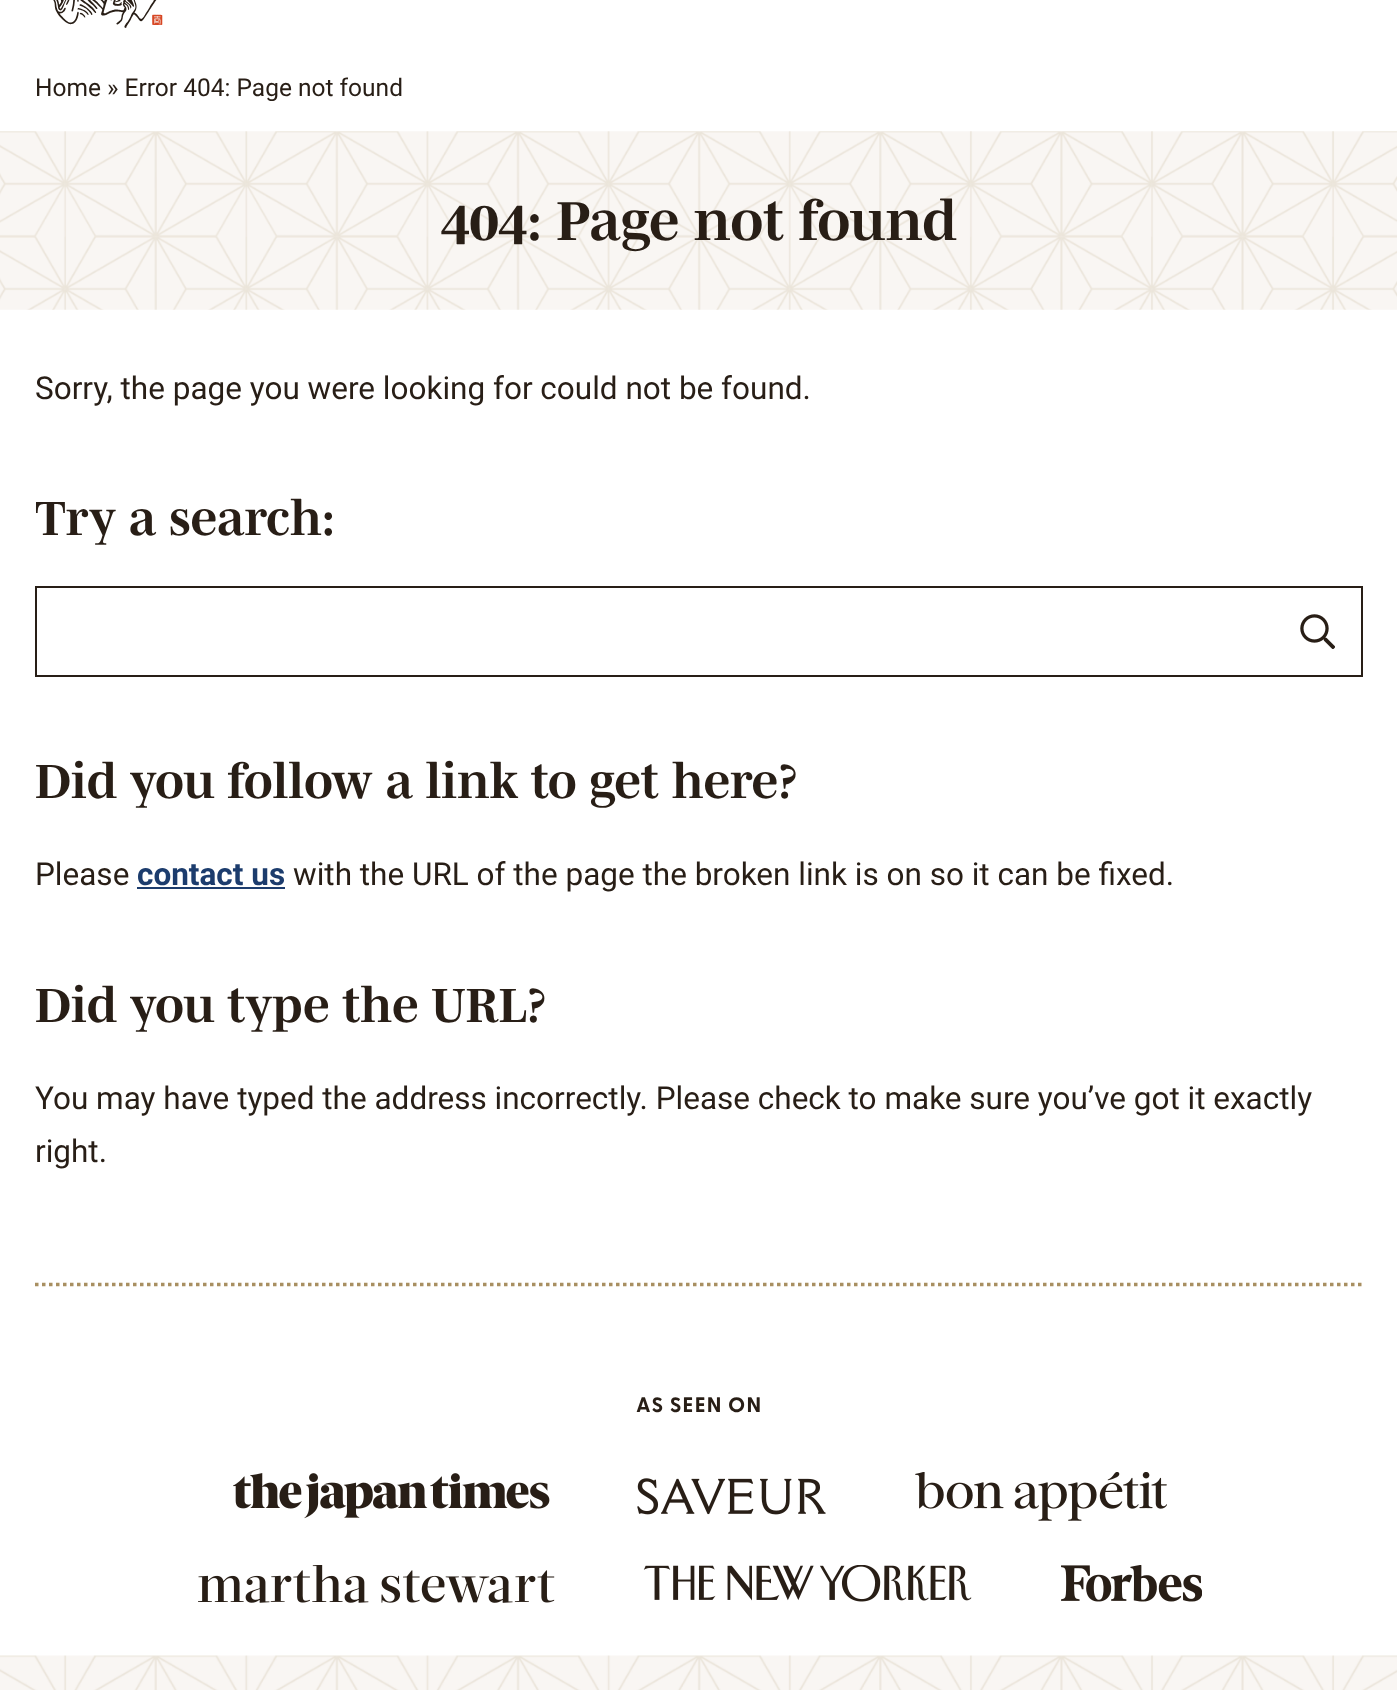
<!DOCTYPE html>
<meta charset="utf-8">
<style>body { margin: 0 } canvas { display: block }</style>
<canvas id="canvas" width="1397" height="1690"></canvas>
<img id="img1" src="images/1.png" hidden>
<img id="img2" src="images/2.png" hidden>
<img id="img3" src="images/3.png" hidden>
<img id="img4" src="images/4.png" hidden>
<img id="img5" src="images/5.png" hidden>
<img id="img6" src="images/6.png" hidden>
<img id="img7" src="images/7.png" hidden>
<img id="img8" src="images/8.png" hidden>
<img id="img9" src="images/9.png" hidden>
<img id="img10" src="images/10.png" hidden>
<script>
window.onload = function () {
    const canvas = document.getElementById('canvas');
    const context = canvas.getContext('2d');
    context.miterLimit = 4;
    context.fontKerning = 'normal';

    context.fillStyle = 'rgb(255, 255, 255)';
    context.fillRect(0, 0, 1397, 1690);
    context.drawImage(document.getElementById('img1'), 53, 0, 110, 28);
    context.drawImage(document.getElementById('img2'), 0, 131, 1397, 179);
    context.strokeStyle = 'rgb(40, 30, 22)';
    context.lineWidth = 2;
    context.strokeRect(36, 587, 1326, 89);
    context.drawImage(document.getElementById('img3'), 1300, 614, 35, 35);
    context.fillStyle = 'rgb(28, 60, 109)';
    context.fillRect(137, 887, 148, 2);
    context.beginPath();
    context.moveTo(35, 1284.5);
    context.lineTo(1363, 1284.5);
    context.strokeStyle = 'rgb(168, 143, 97)';
    context.lineWidth = 3.5;
    context.setLineDash([3.5, 3.5]);
    context.stroke();
    context.drawImage(document.getElementById('img4'), 233, 1473, 317, 46);
    context.drawImage(document.getElementById('img5'), 637, 1478, 189, 37);
    context.drawImage(document.getElementById('img6'), 915, 1472, 252, 49);
    context.drawImage(document.getElementById('img7'), 198, 1565, 357, 38);
    context.drawImage(document.getElementById('img8'), 643, 1565, 329, 37);
    context.drawImage(document.getElementById('img9'), 1061, 1565, 141, 37);
    context.drawImage(document.getElementById('img10'), 0, 1655, 1397, 35);
    context.font = '24.5px Roboto';
    context.fillStyle = 'rgb(40, 30, 22)';
    context.fillText('Home » Error 404: Page not found', 35, 96);
    context.font = 'bold 56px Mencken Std';
    context.fillText('404: Page not found', 441, 240);
    context.font = '31.5px Roboto';
    context.fillText('Sorry, the page you were looking for could not be found.', 35, 399);
    context.font = 'bold 49px Mencken Std';
    context.fillText('Try a search:', 35, 535);
    context.fillText('Did you follow a link to get here?', 35, 798);
    context.font = '31.5px Roboto';
    context.fillText('Please', 35, 885);
    context.font = 'bold 31.5px Roboto';
    context.fillStyle = 'rgb(28, 60, 109)';
    context.fillText('contact us', 137, 885);
    context.font = '31.5px Roboto';
    context.fillStyle = 'rgb(40, 30, 22)';
    context.fillText('with the URL of the page the broken link is on so it can be fixed.', 293, 885);
    context.font = 'bold 49px Mencken Std';
    context.fillText('Did you type the URL?', 35, 1022);
    context.font = '31.5px Roboto';
    context.fillText('You may have typed the address incorrectly. Please check to make sure you’ve got it exactly', 35, 1109);
    context.fillText('right.', 35, 1162);
    context.letterSpacing = '1.25px';
    context.font = 'bold 21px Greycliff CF';
    context.fillText('AS SEEN ON', 636, 1412);
};
</script>
